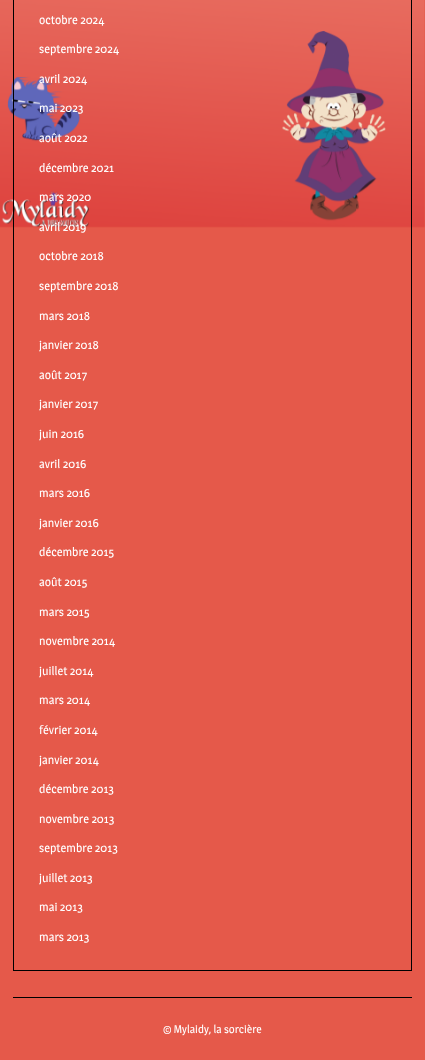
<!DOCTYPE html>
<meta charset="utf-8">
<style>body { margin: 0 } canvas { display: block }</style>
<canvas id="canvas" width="425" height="1060"></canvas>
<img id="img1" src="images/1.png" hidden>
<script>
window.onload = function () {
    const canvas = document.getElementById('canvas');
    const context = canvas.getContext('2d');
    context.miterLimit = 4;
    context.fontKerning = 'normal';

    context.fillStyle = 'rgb(229, 89, 74)';
    context.fillRect(0, 0, 425, 1060);
    context.drawImage(document.getElementById('img1'), 0, 0, 425, 228);
    context.fillStyle = 'rgb(0, 0, 0)';
    context.beginPath();
    context.moveTo(412, -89);
    context.lineTo(412, 971);
    context.lineTo(411, 970);
    context.lineTo(411, -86);
    context.closePath();
    context.fill();
    context.fillRect(13, 970, 399, 1);
    context.beginPath();
    context.moveTo(13, 971);
    context.lineTo(13, -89);
    context.lineTo(14, -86);
    context.lineTo(14, 970);
    context.closePath();
    context.fill();
    context.fillRect(13, 997, 399, 1);
    context.font = '12px Magra';
    context.fillStyle = 'rgb(255, 255, 255)';
    context.fillText('octobre 2024', 39, 24);
    context.fillText('septembre 2024', 39, 53);
    context.fillText('avril 2024', 39, 83);
    context.fillText('mai 2023', 39, 112);
    context.fillText('août 2022', 39, 142);
    context.fillText('décembre 2021', 39, 172);
    context.fillText('mars 2020', 39, 201);
    context.fillText('avril 2019', 39, 231);
    context.fillText('octobre 2018', 39, 260);
    context.fillText('septembre 2018', 39, 290);
    context.fillText('mars 2018', 39, 320);
    context.fillText('janvier 2018', 39, 349);
    context.fillText('août 2017', 39, 379);
    context.fillText('janvier 2017', 39, 408);
    context.fillText('juin 2016', 39, 438);
    context.fillText('avril 2016', 39, 468);
    context.fillText('mars 2016', 39, 497);
    context.fillText('janvier 2016', 39, 527);
    context.fillText('décembre 2015', 39, 556);
    context.fillText('août 2015', 39, 586);
    context.fillText('mars 2015', 39, 616);
    context.fillText('novembre 2014', 39, 645);
    context.fillText('juillet 2014', 39, 675);
    context.fillText('mars 2014', 39, 704);
    context.fillText('février 2014', 39, 734);
    context.fillText('janvier 2014', 39, 764);
    context.fillText('décembre 2013', 39, 793);
    context.fillText('novembre 2013', 39, 823);
    context.fillText('septembre 2013', 39, 852);
    context.fillText('juillet 2013', 39, 882);
    context.fillText('mai 2013', 39, 911);
    context.fillText('mars 2013', 39, 941);
    context.font = '11.25px Magra';
    context.fillText('© Mylaidy, la sorcière', 163, 1033);
};
</script>
